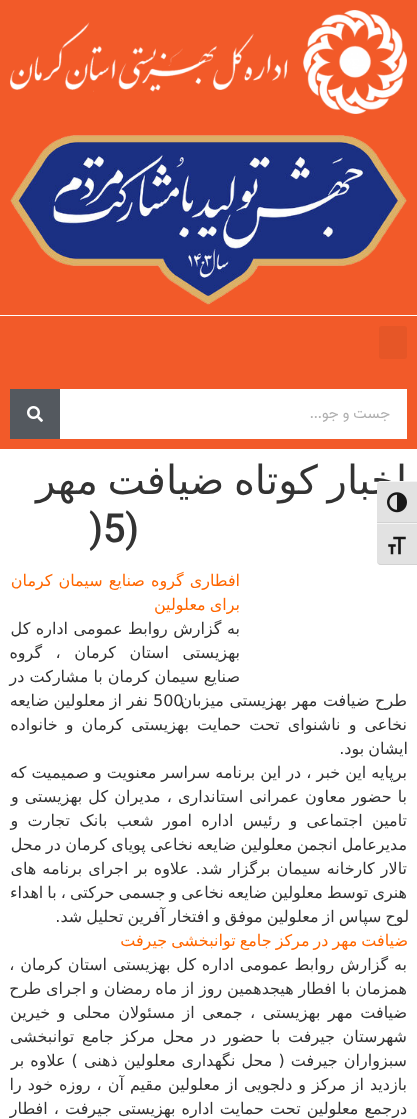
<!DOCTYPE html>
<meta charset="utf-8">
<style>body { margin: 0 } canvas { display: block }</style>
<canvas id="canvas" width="417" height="1119"></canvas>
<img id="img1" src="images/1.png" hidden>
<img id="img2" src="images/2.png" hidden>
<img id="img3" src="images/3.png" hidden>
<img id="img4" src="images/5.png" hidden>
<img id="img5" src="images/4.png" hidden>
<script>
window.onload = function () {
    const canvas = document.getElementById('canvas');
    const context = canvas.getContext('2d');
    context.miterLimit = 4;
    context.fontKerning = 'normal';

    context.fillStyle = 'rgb(255, 255, 255)';
    context.fillRect(0, 0, 417, 1119);
    context.fillStyle = 'rgb(242, 90, 41)';
    context.fillRect(0, 0, 417, 315);
    context.drawImage(document.getElementById('img1'), 10, 10, 397, 104);
    context.drawImage(document.getElementById('img2'), 10, 135, 397, 170);
    context.fillRect(0, 316, 417, 133);
    context.fillStyle = 'rgb(230, 86, 39)';
    context.beginPath();
    context.roundRect(379, 326, 28, 33, 3);
    context.fill();
    context.fillStyle = 'rgb(255, 255, 255)';
    context.fillRect(60, 389, 347, 50);
    context.fillStyle = 'rgb(84, 89, 95)';
    context.fillRect(10, 389, 50, 50);
    context.drawImage(document.getElementById('img3'), 27, 406, 16, 16);
    context.fillStyle = 'rgb(226, 226, 226)';
    context.beginPath();
    context.roundRect(377, 523, 40, 42, [0, 0, 0, 4]);
    context.fill();
    context.fillStyle = 'rgb(245, 245, 245)';
    context.fillRect(377, 523, 40, 1);
    context.fillStyle = 'rgb(210, 210, 210)';
    context.beginPath();
    context.moveTo(417, 565);
    context.lineTo(417, 564);
    context.lineTo(381, 564);
    context.bezierCurveTo(379, 564, 377, 563, 377, 561);
    context.bezierCurveTo(377, 563, 379, 565, 381, 565);
    context.closePath();
    context.fill();
    context.drawImage(document.getElementById('img4'), 388, 536, 18, 19);
    context.direction = 'rtl';
    context.font = '15px Vazirmatn';
    context.fillStyle = 'rgb(175, 175, 175)';
    context.fillText('جست و جو...', 390, 418);
    context.wordSpacing = '-3px';
    context.font = '40px DejaVu Sans';
    context.fillStyle = 'rgb(51, 51, 51)';
    context.fillText('اخبار کوتاه ضیافت مهر', 407, 494);
    context.wordSpacing = '0px';
    context.font = '500 40px Roboto';
    context.fillText('(', 139, 542);
    context.direction = 'ltr';
    context.fillText(')5', 89, 542);
    context.wordSpacing = '1px';
    context.direction = 'rtl';
    context.font = '16px DejaVu Sans';
    context.fillStyle = 'rgb(255, 102, 0)';
    context.fillText('افطاری گروه صنایع سیمان کرمان', 240, 586);
    context.wordSpacing = '-1px';
    context.fillText('برای معلولین', 240, 610);
    context.wordSpacing = '0.5px';
    context.fillStyle = 'rgb(51, 51, 51)';
    context.fillText('به گزارش روابط عمومی اداره کل', 240, 634);
    context.wordSpacing = '8.5px';
    context.fillText('بهزیستی استان کرمان ، گروه', 240, 658);
    context.wordSpacing = '0px';
    context.fillText('صنایع سیمان کرمان با مشارکت در', 240, 682);
    context.direction = 'ltr';
    context.fillText('500', 153, 706);
    context.wordSpacing = '0.5px';
    context.direction = 'rtl';
    context.fillText('طرح ضیافت مهر بهزیستی میزبان', 407, 706);
    context.wordSpacing = '-0.5px';
    context.fillText('نفر از معلولین ضایعه', 148, 706);
    context.wordSpacing = '3px';
    context.fillText('نخاعی و ناشنوای تحت حمایت بهزیستی کرمان و خانواده', 407, 730);
    context.wordSpacing = '-1px';
    context.fillText('ایشان بود.', 408, 754);
    context.wordSpacing = '0px';
    context.fillText('برپایه این خبر ، در این برنامه سراسر معنویت و صمیمیت که', 407, 778);
    context.wordSpacing = '1px';
    context.fillText('با حضور معاون عمرانی استانداری ، مدیران کل بهزیستی و', 407, 802);
    context.wordSpacing = '4.25px';
    context.fillText('تامین اجتماعی و رئیس اداره امور شعب بانک تجارت و', 407, 826);
    context.wordSpacing = '-0.75px';
    context.fillText('مدیرعامل انجمن معلولین ضایعه نخاعی پویای کرمان در محل', 407, 850);
    context.wordSpacing = '1px';
    context.fillText('تالار کارخانه سیمان برگزار شد.', 407, 874);
    context.fillText('علاوه بر اجرای برنامه های', 189, 874);
    context.wordSpacing = '-1px';
    context.fillText('هنری توسط معلولین ضایعه نخاعی و جسمی حرکتی ، با اهداء', 407, 898);
    context.fillText('لوح سپاس از معلولین موفق و افتخار آفرین تحلیل شد.', 409, 922);
    context.fillStyle = 'rgb(255, 102, 0)';
    context.fillText('ضیافت مهر در مرکز جامع توانبخشی جیرفت', 408, 946);
    context.wordSpacing = '0.75px';
    context.fillStyle = 'rgb(51, 51, 51)';
    context.fillText('به گزارش روابط عمومی اداره کل بهزیستی استان کرمان ،', 407, 970);
    context.wordSpacing = '-0.25px';
    context.fillText('همزمان با افطار هیجدهمین روز از ماه رمضان و اجرای طرح', 407, 994);
    context.wordSpacing = '2.5px';
    context.fillText('ضیافت مهر بهزیستی ، جمعی از مسئولان محلی و خیرین', 407, 1018);
    context.fillText('شهرستان جیرفت با حضور در محل مرکز جامع توانبخشی', 407, 1042);
    context.wordSpacing = '1px';
    context.fillText('سبزواران جیرفت ( محل نگهداری معلولین ذهنی ) علاوه بر', 407, 1066);
    context.wordSpacing = '0.9px';
    context.fillText('بازدید از مرکز و دلجویی از معلولین مقیم آن ، روزه خود را', 407, 1090);
    context.wordSpacing = '1px';
    context.fillText('درجمع معلولین تحت حمایت اداره بهزیستی جیرفت ، افطار', 407, 1114);
    context.fillStyle = 'rgb(226, 226, 226)';
    context.beginPath();
    context.roundRect(377, 481, 40, 42, [4, 0, 0, 0]);
    context.fill();
    context.fillStyle = 'rgb(245, 245, 245)';
    context.beginPath();
    context.moveTo(381, 482);
    context.lineTo(417, 482);
    context.lineTo(417, 481);
    context.lineTo(381, 481);
    context.bezierCurveTo(379, 481, 377, 483, 377, 485);
    context.bezierCurveTo(377, 483, 379, 482, 381, 482);
    context.closePath();
    context.fill();
    context.fillStyle = 'rgb(210, 210, 210)';
    context.fillRect(377, 522, 40, 1);
    context.drawImage(document.getElementById('img5'), 387, 492, 20, 21);
};
</script>
